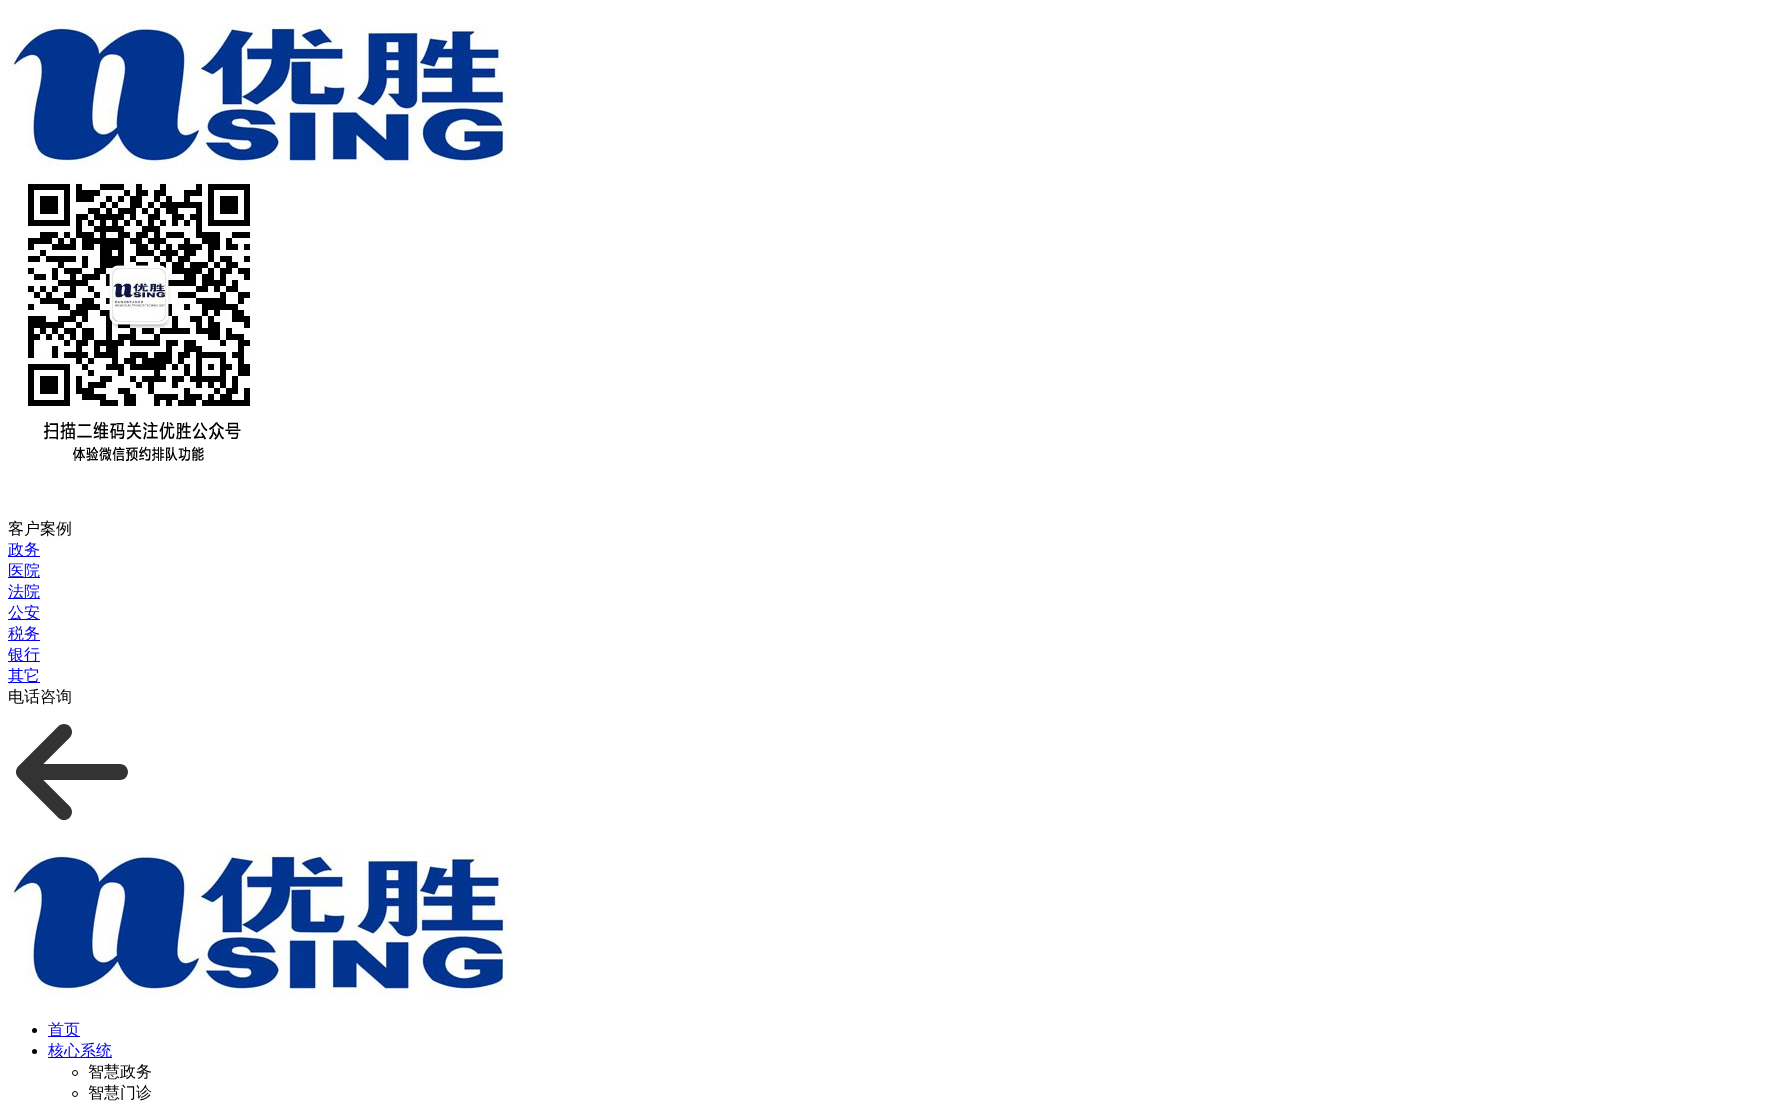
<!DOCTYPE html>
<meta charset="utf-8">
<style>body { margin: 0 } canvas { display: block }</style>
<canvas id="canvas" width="1787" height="1111"></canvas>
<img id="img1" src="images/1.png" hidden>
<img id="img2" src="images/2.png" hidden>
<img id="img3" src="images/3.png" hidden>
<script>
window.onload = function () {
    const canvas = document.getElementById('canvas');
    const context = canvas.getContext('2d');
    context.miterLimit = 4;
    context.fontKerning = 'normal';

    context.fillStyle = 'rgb(255, 255, 255)';
    context.fillRect(0, 0, 1787, 1111);
    context.drawImage(document.getElementById('img1'), 8, 24, 500, 144);
    context.drawImage(document.getElementById('img2'), 25, 182, 225, 280);
    context.fillStyle = 'rgb(0, 0, 238)';
    context.fillRect(8, 556, 32, 1);
    context.fillRect(8, 577, 32, 1);
    context.fillRect(8, 598, 32, 1);
    context.fillRect(8, 619, 32, 1);
    context.fillRect(8, 640, 32, 1);
    context.fillRect(8, 661, 32, 1);
    context.fillRect(8, 682, 32, 1);
    context.drawImage(document.getElementById('img3'), 16, 724, 112, 96);
    context.drawImage(document.getElementById('img1'), 8, 852, 500, 144);
    context.fillStyle = 'rgb(0, 0, 0)';
    context.beginPath();
    context.arc(34.5, 1030.5, 2.5, 0, 2 * Math.PI);
    context.fill();
    context.fillStyle = 'rgb(0, 0, 238)';
    context.fillRect(48, 1036, 32, 1);
    context.fillStyle = 'rgb(0, 0, 0)';
    context.beginPath();
    context.arc(34.5, 1051.5, 2.5, 0, 2 * Math.PI);
    context.fill();
    context.fillStyle = 'rgb(0, 0, 238)';
    context.fillRect(48, 1057, 64, 1);
    context.beginPath();
    context.arc(75, 1073, 2.5, 0, 2 * Math.PI);
    context.strokeStyle = 'rgb(0, 0, 0)';
    context.stroke();
    context.beginPath();
    context.arc(75, 1094, 2.5, 0, 2 * Math.PI);
    context.stroke();
    context.font = '500 16px WenQuanYi Zen Hei';
    context.fillStyle = 'rgb(0, 0, 0)';
    context.fillText('客户案例', 8, 534);
    context.fillStyle = 'rgb(0, 0, 238)';
    context.fillText('政务', 8, 555);
    context.fillText('医院', 8, 576);
    context.fillText('法院', 8, 597);
    context.fillText('公安', 8, 618);
    context.fillText('税务', 8, 639);
    context.fillText('银行', 8, 660);
    context.fillText('其它', 8, 681);
    context.fillStyle = 'rgb(0, 0, 0)';
    context.fillText('电话咨询', 8, 702);
    context.fillStyle = 'rgb(0, 0, 238)';
    context.fillText('首页', 48, 1035);
    context.fillText('核心系统', 48, 1056);
    context.fillStyle = 'rgb(0, 0, 0)';
    context.fillText('智慧政务', 88, 1077);
    context.fillText('智慧门诊', 88, 1098);
};
</script>
